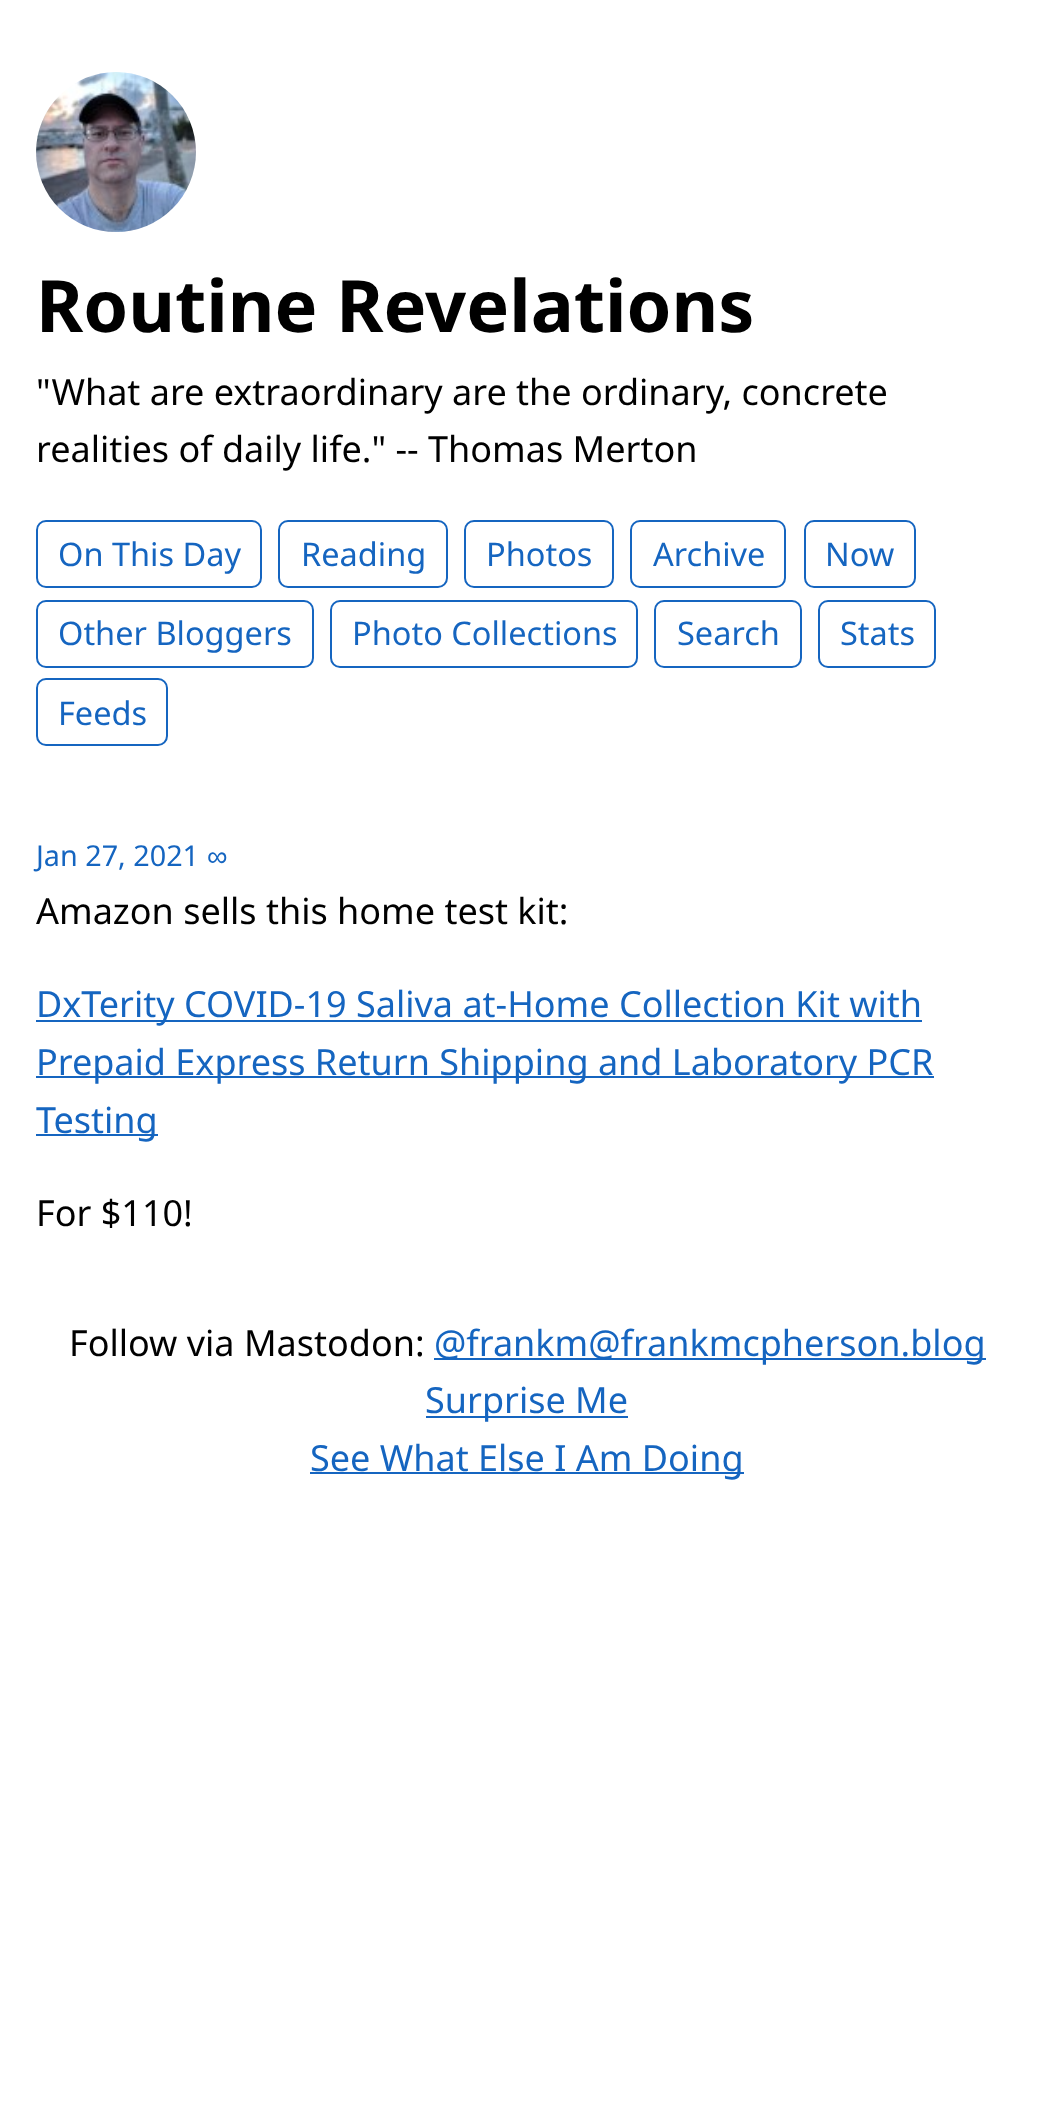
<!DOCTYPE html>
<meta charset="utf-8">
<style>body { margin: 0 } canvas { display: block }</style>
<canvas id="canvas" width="1054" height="2126"></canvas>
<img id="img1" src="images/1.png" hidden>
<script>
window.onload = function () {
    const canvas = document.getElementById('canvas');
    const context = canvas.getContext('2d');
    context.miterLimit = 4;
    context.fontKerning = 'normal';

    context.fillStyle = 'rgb(255, 255, 255)';
    context.fillRect(0, 0, 1054, 2126);
    context.drawImage(document.getElementById('img1'), 36, 72, 160, 160);
    context.beginPath();
    context.roundRect(37, 521, 224, 66, 9);
    context.strokeStyle = 'rgb(21, 101, 192)';
    context.lineWidth = 2;
    context.stroke();
    context.beginPath();
    context.roundRect(279, 521, 168, 66, 9);
    context.stroke();
    context.beginPath();
    context.roundRect(465, 521, 148, 66, 9);
    context.stroke();
    context.beginPath();
    context.roundRect(631, 521, 154, 66, 9);
    context.stroke();
    context.beginPath();
    context.roundRect(805, 521, 110, 66, 9);
    context.stroke();
    context.beginPath();
    context.roundRect(37, 601, 276, 66, 9);
    context.stroke();
    context.beginPath();
    context.roundRect(331, 601, 306, 66, 9);
    context.stroke();
    context.beginPath();
    context.roundRect(655, 601, 146, 66, 9);
    context.stroke();
    context.beginPath();
    context.roundRect(819, 601, 116, 66, 9);
    context.stroke();
    context.beginPath();
    context.roundRect(37, 679, 130, 66, 9);
    context.stroke();
    context.fillStyle = 'rgb(21, 101, 192)';
    context.fillRect(36, 1020, 886, 2);
    context.fillRect(36, 1076, 898, 2);
    context.fillRect(36, 1134, 122, 2);
    context.fillRect(434, 1358, 552, 2);
    context.fillRect(426, 1416, 202, 2);
    context.fillRect(310, 1472, 434, 2);
    context.font = 'bold 72px Noto Sans';
    context.fillStyle = 'rgb(0, 0, 0)';
    context.fillText('Routine Revelations', 36, 332);
    context.font = '36px Noto Sans';
    context.fillText('"What are extraordinary are the ordinary, concrete', 36, 405);
    context.fillText('realities of daily life." -- Thomas Merton', 36, 462);
    context.font = '32.5px Noto Sans';
    context.fillStyle = 'rgb(21, 101, 192)';
    context.fillText('On This Day', 58, 566);
    context.fillText('Reading', 301, 566);
    context.fillText('Photos', 486, 566);
    context.fillText('Archive', 653, 566);
    context.fillText('Now', 825, 566);
    context.fillText('Other Bloggers', 58, 645);
    context.fillText('Photo Collections', 352, 645);
    context.fillText('Search', 677, 645);
    context.fillText('Stats', 840, 645);
    context.fillText('Feeds', 58, 725);
    context.font = '28.75px Noto Sans';
    context.fillText('Jan 27, 2021', 36, 866);
    context.font = '28.75px Liberation Sans';
    context.fillText('∞', 207, 866);
    context.font = '36px Noto Sans';
    context.fillStyle = 'rgb(0, 0, 0)';
    context.fillText('Amazon sells this home test kit:', 36, 924);
    context.fillStyle = 'rgb(21, 101, 192)';
    context.fillText('DxTerity COVID-19 Saliva at-Home Collection Kit with', 36, 1017);
    context.fillText('Prepaid Express Return Shipping and Laboratory PCR', 36, 1075);
    context.fillText('Testing', 36, 1133);
    context.fillStyle = 'rgb(0, 0, 0)';
    context.fillText('For $110!', 36, 1226);
    context.fillText('Follow via Mastodon:', 69, 1356);
    context.fillStyle = 'rgb(21, 101, 192)';
    context.fillText('@frankm@frankmcpherson.blog', 434, 1356);
    context.fillText('Surprise Me', 425, 1413);
    context.fillText('See What Else I Am Doing', 310, 1471);
};
</script>
